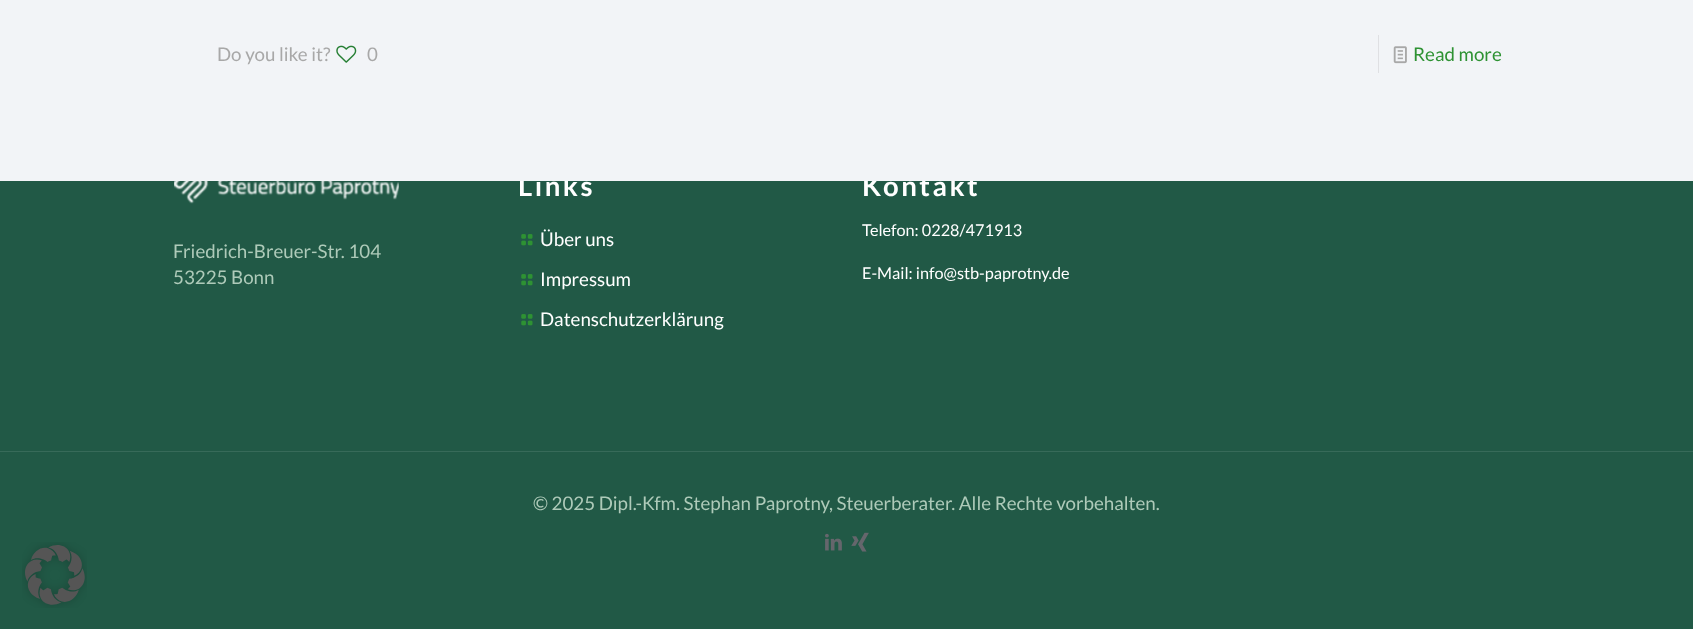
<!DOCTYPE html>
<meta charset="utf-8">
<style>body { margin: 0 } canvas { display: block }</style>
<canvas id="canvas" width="1693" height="629"></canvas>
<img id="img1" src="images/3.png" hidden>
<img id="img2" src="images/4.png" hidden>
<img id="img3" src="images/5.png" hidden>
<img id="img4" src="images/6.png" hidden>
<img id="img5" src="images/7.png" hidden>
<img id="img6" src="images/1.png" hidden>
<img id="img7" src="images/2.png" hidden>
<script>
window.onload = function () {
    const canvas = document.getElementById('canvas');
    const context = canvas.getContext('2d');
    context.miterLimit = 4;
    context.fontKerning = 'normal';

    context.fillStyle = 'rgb(33, 89, 70)';
    context.fillRect(0, 0, 1693, 629);
    context.drawImage(document.getElementById('img1'), 174, 181, 225, 23);
    context.drawImage(document.getElementById('img2'), 521, 234, 12, 12);
    context.drawImage(document.getElementById('img2'), 521, 274, 12, 12);
    context.drawImage(document.getElementById('img2'), 521, 314, 12, 12);
    context.fillStyle = 'rgb(55, 106, 89)';
    context.fillRect(0, 451, 1693, 1);
    context.drawImage(document.getElementById('img3'), 825, 533, 17, 18);
    context.drawImage(document.getElementById('img4'), 851, 532, 18, 20);
    context.drawImage(document.getElementById('img5'), 22, 542, 65, 66);
    context.font = '18.75px Lato';
    context.fillStyle = 'rgb(174, 202, 185)';
    context.fillText('Friedrich-Breuer-Str. 104', 173, 258);
    context.fillText('53225 Bonn', 173, 284);
    context.letterSpacing = '2.5px';
    context.font = 'bold 27.5px Lato';
    context.fillStyle = 'rgb(255, 255, 255)';
    context.fillText('Links', 518, 196);
    context.letterSpacing = '0px';
    context.font = '18.75px Lato';
    context.fillText('Über uns', 540, 246);
    context.fillText('Impressum', 540, 286);
    context.fillText('Datenschutzerklärung', 540, 326);
    context.letterSpacing = '2.5px';
    context.font = 'bold 27.5px Lato';
    context.fillText('Kontakt', 862, 196);
    context.fillStyle = 'rgb(242, 244, 247)';
    context.fillRect(0, 0, 1693, 181);
    context.drawImage(document.getElementById('img6'), 336, 45, 21, 18);
    context.letterSpacing = '0px';
    context.font = '18.75px Lato';
    context.fillStyle = 'rgb(168, 168, 168)';
    context.fillText('0', 367, 61);
    context.fillStyle = 'rgb(46, 146, 51)';
    context.fillText('Read more', 1413, 61);
    context.drawImage(document.getElementById('img7'), 1393, 46, 14, 18);
    context.fillStyle = 'rgb(223, 224, 227)';
    context.fillRect(1378, 35, 1, 38);
    context.fillStyle = 'rgb(168, 168, 168)';
    context.fillText('Do you like it?', 217, 61);
    context.font = '16.25px Lato';
    context.fillStyle = 'rgb(255, 255, 255)';
    context.fillText('Telefon: 0228/471913', 862, 236);
    context.fillText('E-Mail: info@stb-paprotny.de', 862, 279);
    context.font = '18.75px Lato';
    context.fillStyle = 'rgb(174, 202, 185)';
    context.fillText('© 2025 Dipl.-Kfm. Stephan Paprotny, Steuerberater. Alle Rechte vorbehalten.', 533, 510);
};
</script>
